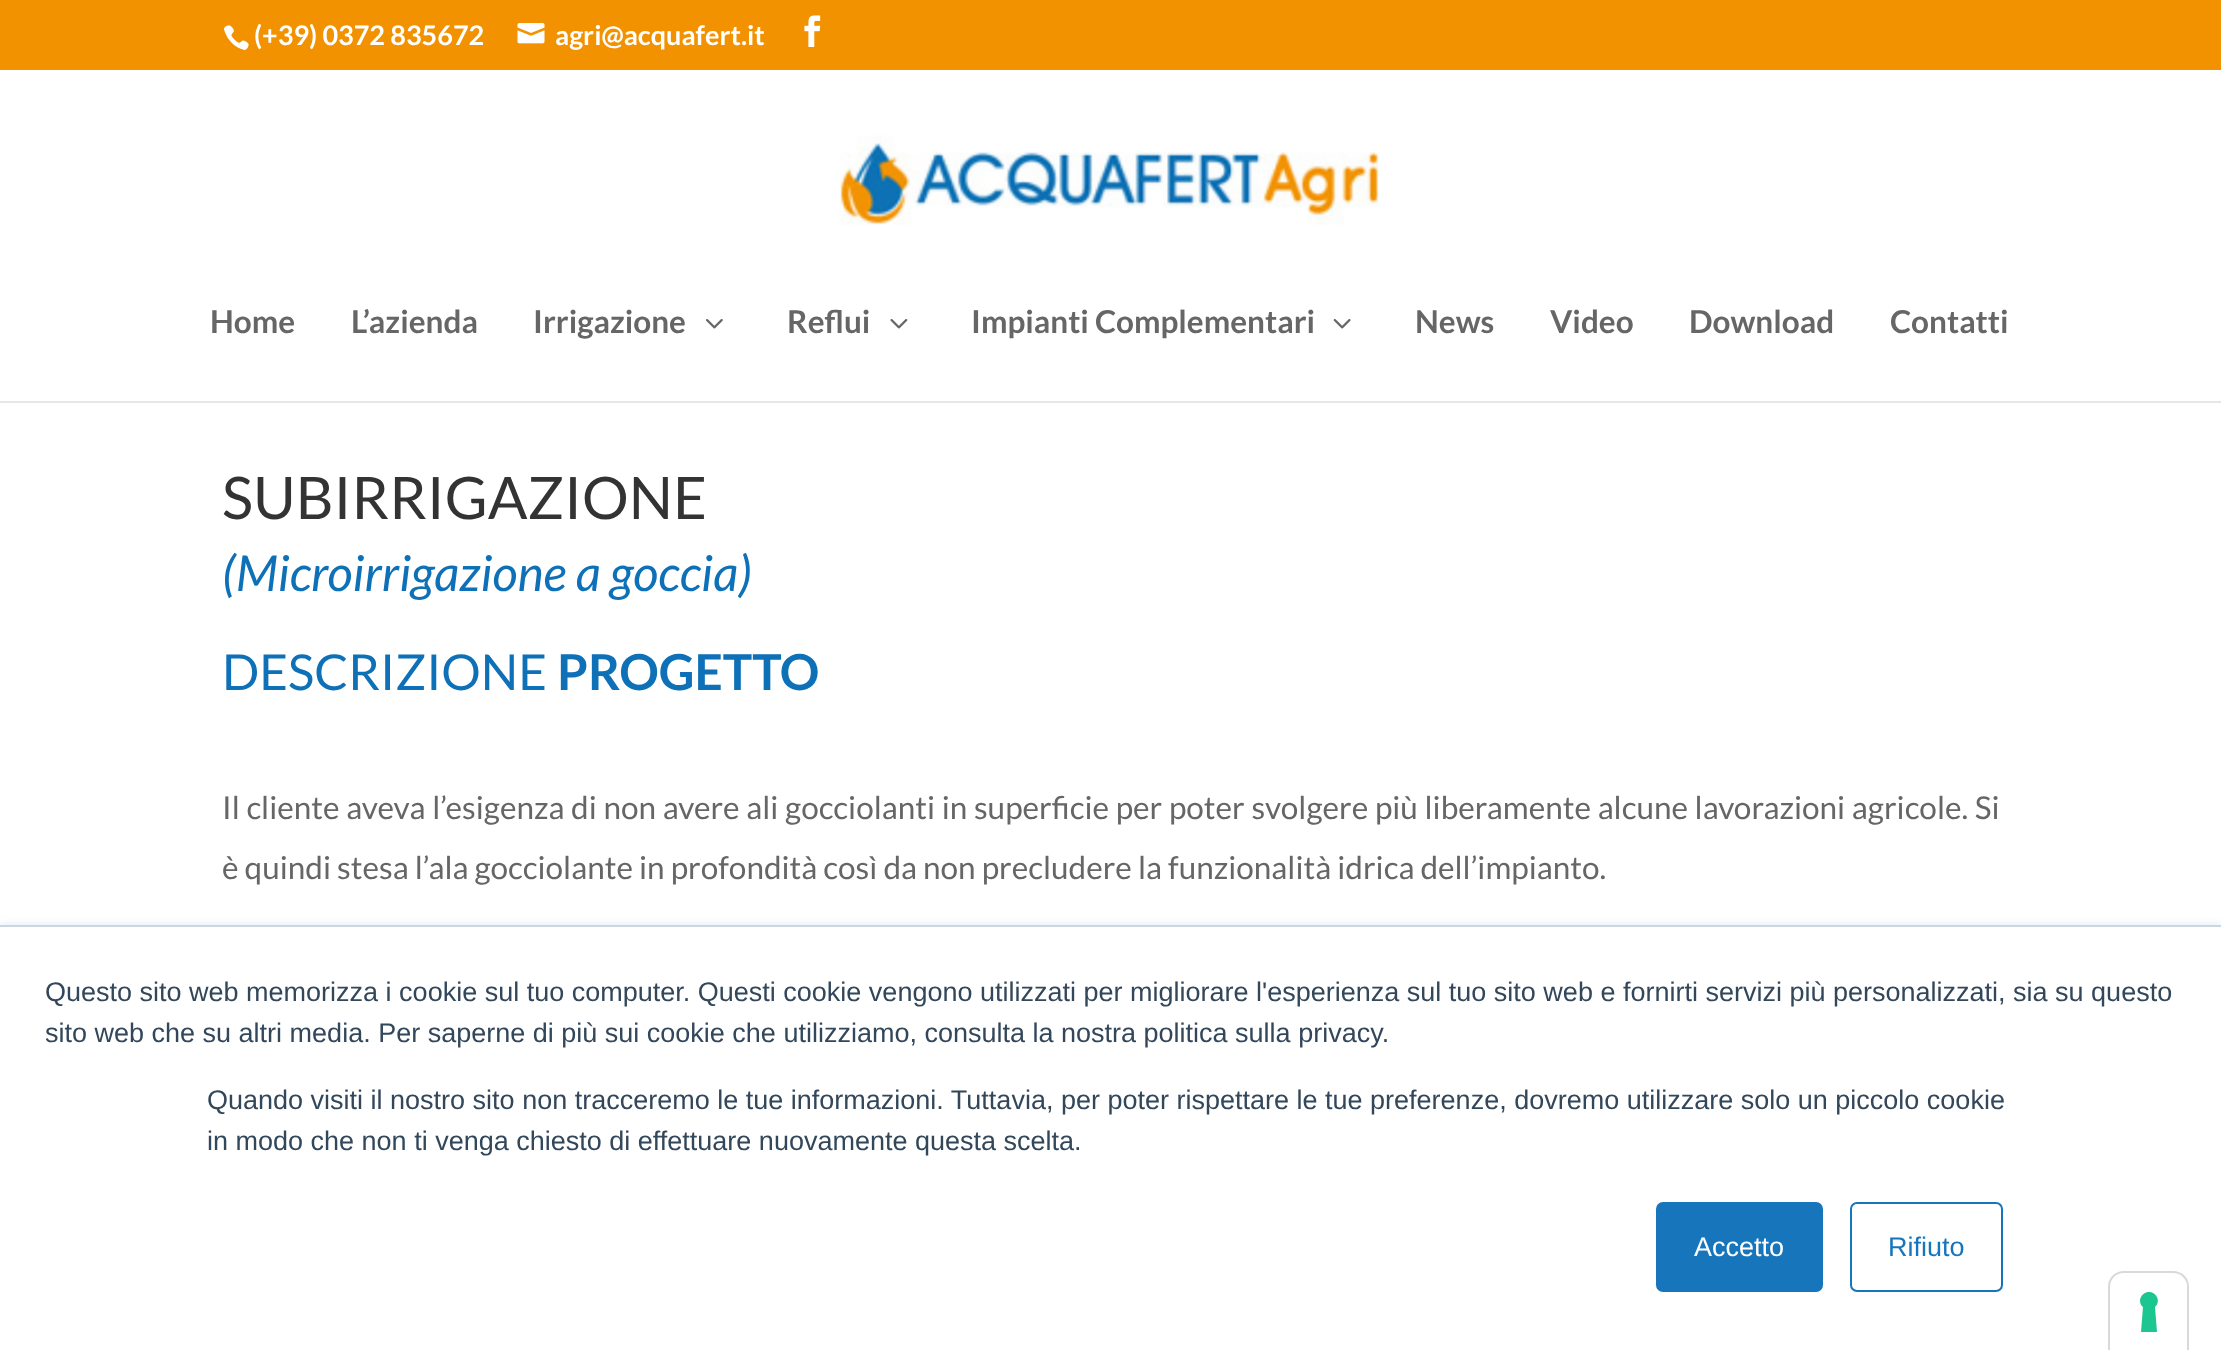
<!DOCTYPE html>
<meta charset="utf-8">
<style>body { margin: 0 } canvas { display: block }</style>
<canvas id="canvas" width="2221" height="1350"></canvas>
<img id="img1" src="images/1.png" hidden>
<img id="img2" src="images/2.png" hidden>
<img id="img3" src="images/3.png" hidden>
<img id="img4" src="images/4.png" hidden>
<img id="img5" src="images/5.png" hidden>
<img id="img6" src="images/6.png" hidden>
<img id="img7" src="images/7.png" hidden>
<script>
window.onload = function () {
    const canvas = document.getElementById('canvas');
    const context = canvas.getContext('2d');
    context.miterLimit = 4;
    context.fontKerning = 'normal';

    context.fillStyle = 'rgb(255, 255, 255)';
    context.fillRect(0, 0, 2221, 1350);
    context.fillStyle = 'rgb(242, 146, 0)';
    context.fillRect(0, 0, 2221, 70);
    context.drawImage(document.getElementById('img1'), 223, 25, 26, 26);
    context.drawImage(document.getElementById('img2'), 517, 23, 28, 21);
    context.drawImage(document.getElementById('img3'), 804, 15, 17, 32);
    context.fillStyle = 'rgb(230, 230, 230)';
    context.fillRect(0, 401, 2221, 2);
    context.drawImage(document.getElementById('img4'), 839, 135, 540, 90);
    context.drawImage(document.getElementById('img5'), 706, 319, 17, 10);
    context.drawImage(document.getElementById('img6'), 890, 319, 18, 10);
    context.drawImage(document.getElementById('img7'), 1333, 319, 18, 10);
    context.fillStyle = 'rgb(234, 240, 246)';
    context.filter = 'blur(3.5px)';
    context.beginPath();
    context.rect(0, 923, 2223, 425);
    context.fill();
    context.filter = 'none';
    context.fillStyle = 'rgb(255, 255, 255)';
    context.fillRect(0, 927, 2221, 423);
    context.fillStyle = 'rgb(203, 214, 226)';
    context.fillRect(0, 925, 2221, 2);
    context.fillStyle = 'rgb(23, 117, 188)';
    context.beginPath();
    context.roundRect(1657, 1203, 165, 88, 6);
    context.fill();
    context.strokeStyle = 'rgb(23, 117, 188)';
    context.lineWidth = 2;
    context.stroke();
    context.beginPath();
    context.roundRect(1851, 1203, 151, 88, 6);
    context.stroke();
    context.beginPath();
    context.moveTo(2124, 1272);
    context.lineTo(2173, 1272);
    context.bezierCurveTo(2181.5, 1272, 2188, 1278.5, 2188, 1287);
    context.lineTo(2188, 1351);
    context.lineTo(2109, 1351);
    context.lineTo(2109, 1287);
    context.bezierCurveTo(2109, 1278.5, 2115.5, 1272, 2124, 1272);
    context.closePath();
    context.strokeStyle = 'rgb(217, 217, 217)';
    context.stroke();
    context.fillStyle = 'rgb(255, 255, 255)';
    context.beginPath();
    context.roundRect(2111, 1274, 76, 76, [14, 14, 0, 0]);
    context.fill();
    context.fillStyle = 'rgb(28, 198, 145)';
    context.beginPath();
    context.moveTo(2149, 1292);
    context.bezierCurveTo(2157, 1292, 2161, 1302, 2155, 1307);
    context.lineTo(2157, 1332);
    context.lineTo(2141, 1332);
    context.lineTo(2143, 1307);
    context.bezierCurveTo(2137, 1302, 2141, 1292, 2149, 1292);
    context.closePath();
    context.fill('evenodd');
    context.font = 'bold 27px Lato';
    context.fillStyle = 'rgb(255, 255, 255)';
    context.fillText('(+39) 0372 835672', 254, 45);
    context.fillText('agri@acquafert.it', 555, 45);
    context.font = 'bold 31.5px Lato';
    context.fillStyle = 'rgb(102, 102, 102)';
    context.fillText('Home', 210, 333);
    context.fillText('L’azienda', 351, 333);
    context.fillText('Irrigazione', 533, 333);
    context.fillText('Reflui', 787, 333);
    context.fillText('Impianti Complementari', 971, 333);
    context.fillText('News', 1415, 333);
    context.fillText('Video', 1550, 333);
    context.fillText('Download', 1689, 333);
    context.fillText('Contatti', 1890, 333);
    context.font = '58.5px Lato';
    context.fillStyle = 'rgb(51, 51, 51)';
    context.fillText('SUBIRRIGAZIONE', 222, 519);
    context.font = 'italic 49.5px Lato';
    context.fillStyle = 'rgb(14, 113, 184)';
    context.fillText('(Microirrigazione a goccia)', 222, 591);
    context.font = '49.5px Lato';
    context.fillText('DESCRIZIONE', 222, 690);
    context.font = 'bold 49.5px Lato';
    context.fillText('PROGETTO', 557, 690);
    context.wordSpacing = '0.6px';
    context.font = '31.5px Lato';
    context.fillStyle = 'rgb(102, 102, 102)';
    context.fillText('Il cliente aveva l’esigenza di non avere ali gocciolanti in superficie per poter svolgere più liberamente alcune lavorazioni agricole. Si', 222, 819);
    context.wordSpacing = '0px';
    context.fillText('è quindi stesa l’ala gocciolante in profondità così da non precludere la funzionalità idrica dell’impianto.', 222, 879);
    context.font = '27px Liberation Sans';
    context.fillStyle = 'rgb(51, 71, 91)';
    context.fillText('Questo sito web memorizza i cookie sul tuo computer. Questi cookie vengono utilizzati per migliorare l\'esperienza sul tuo sito web e fornirti servizi più personalizzati, sia su questo', 45, 1001);
    context.fillText('sito web che su altri media. Per saperne di più sui cookie che utilizziamo, consulta la nostra politica sulla privacy.', 45, 1042);
    context.fillText('Quando visiti il nostro sito non tracceremo le tue informazioni. Tuttavia, per poter rispettare le tue preferenze, dovremo utilizzare solo un piccolo cookie', 207, 1109);
    context.fillText('in modo che non ti venga chiesto di effettuare nuovamente questa scelta.', 207, 1150);
    context.fillStyle = 'rgb(255, 255, 255)';
    context.fillText('Accetto', 1694, 1256);
    context.fillStyle = 'rgb(23, 117, 188)';
    context.fillText('Rifiuto', 1888, 1256);
};
</script>
